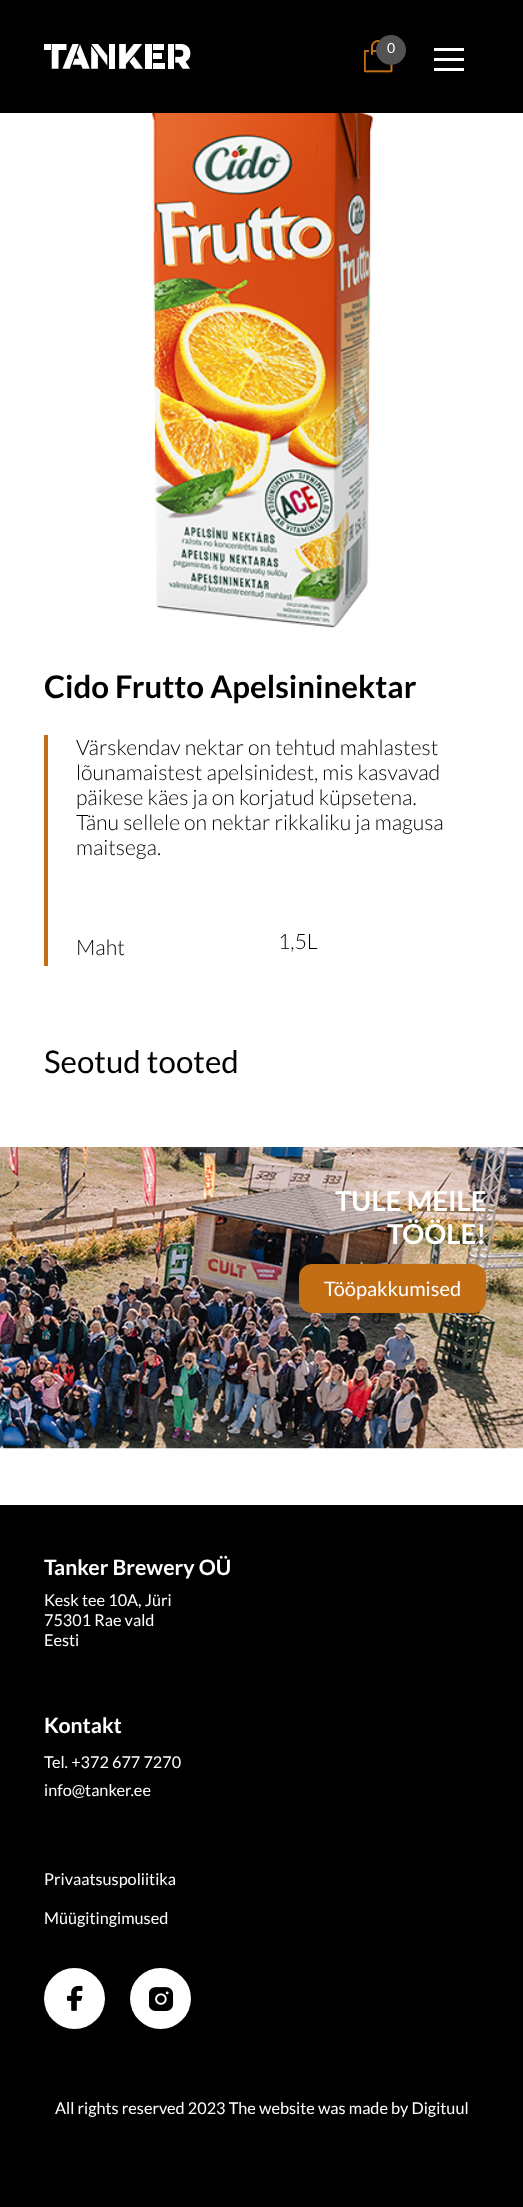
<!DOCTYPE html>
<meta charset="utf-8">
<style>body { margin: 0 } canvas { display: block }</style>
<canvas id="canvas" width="523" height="2207"></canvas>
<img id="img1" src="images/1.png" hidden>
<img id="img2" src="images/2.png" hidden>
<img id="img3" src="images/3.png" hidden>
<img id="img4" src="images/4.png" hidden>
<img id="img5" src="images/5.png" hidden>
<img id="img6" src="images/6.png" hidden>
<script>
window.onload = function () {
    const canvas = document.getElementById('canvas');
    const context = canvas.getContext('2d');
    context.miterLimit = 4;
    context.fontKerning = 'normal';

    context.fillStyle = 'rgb(255, 255, 255)';
    context.fillRect(0, 0, 523, 2207);
    context.fillStyle = 'rgb(0, 0, 0)';
    context.fillRect(0, 0, 523, 113);
    context.drawImage(document.getElementById('img1'), 44, 44, 147, 25);
    context.drawImage(document.getElementById('img2'), 364, 40, 29, 33);
    context.fillStyle = 'rgb(82, 82, 82)';
    context.beginPath();
    context.arc(391, 50, 15, 0, 2 * Math.PI);
    context.fill();
    context.fillStyle = 'rgb(255, 255, 255)';
    context.fillRect(434, 68, 30, 3);
    context.fillRect(434, 48, 30, 3);
    context.fillRect(434, 58, 30, 3);
    context.drawImage(document.getElementById('img3'), 152, 113, 221, 515);
    context.fillStyle = 'rgb(195, 109, 21)';
    context.fillRect(44, 735, 4, 231);
    context.drawImage(document.getElementById('img4'), 0, 1147, 523, 302);
    context.beginPath();
    context.roundRect(299, 1264, 187, 49, 13);
    context.fill();
    context.fillStyle = 'rgb(0, 0, 0)';
    context.fillRect(0, 1505, 523, 702);
    context.fillStyle = 'rgb(255, 255, 255)';
    context.beginPath();
    context.arc(74.5, 1998.5, 30.5, 0, 2 * Math.PI);
    context.fill();
    context.drawImage(document.getElementById('img5'), 66, 1985, 17, 26);
    context.beginPath();
    context.arc(160.5, 1998.5, 30.5, 0, 2 * Math.PI);
    context.fill();
    context.drawImage(document.getElementById('img6'), 149, 1987, 25, 24);
    context.font = '14px Lato';
    context.fillText('0', 387, 53);
    context.font = 'bold 31.25px Lato';
    context.fillStyle = 'rgb(0, 0, 0)';
    context.fillText('Cido Frutto Apelsininektar', 44, 698);
    context.font = '300 21.25px Lato';
    context.fillText('Värskendav nektar on tehtud mahlastest', 76, 755);
    context.fillText('lõunamaistest apelsinidest, mis kasvavad', 76, 780);
    context.fillText('päikese käes ja on korjatud küpsetena.', 76, 805);
    context.fillText('Tänu sellele on nektar rikkaliku ja magusa', 76, 830);
    context.fillText('maitsega.', 76, 855);
    context.fillText('Maht', 76, 955);
    context.fillText('1,5L', 278, 949);
    context.font = '31.25px Lato';
    context.fillText('Seotud tooted', 44, 1073);
    context.font = 'bold 27.5px Lato';
    context.fillStyle = 'rgb(255, 255, 255)';
    context.fillText('TULE MEILE', 335, 1211);
    context.fillText('TÖÖLE!', 387, 1244);
    context.font = '20px Lato';
    context.fillText('Tööpakkumised', 324, 1296);
    context.font = 'bold 21.25px Lato';
    context.fillText('Tanker Brewery OÜ', 44, 1575);
    context.font = '16.25px Lato';
    context.fillText('Kesk tee 10A, Jüri', 44, 1606);
    context.fillText('75301 Rae vald', 44, 1626);
    context.fillText('Eesti', 44, 1646);
    context.font = 'bold 21.25px Lato';
    context.fillText('Kontakt', 44, 1733);
    context.font = '16.25px Lato';
    context.fillText('Tel. +372 677 7270', 44, 1768);
    context.fillText('info@tanker.ee', 44, 1796);
    context.fillText('Privaatsuspoliitika', 44, 1885);
    context.fillText('Müügitingimused', 44, 1924);
    context.fillText('All rights reserved 2023 The website was made by Digituul', 55, 2114);
};
</script>
